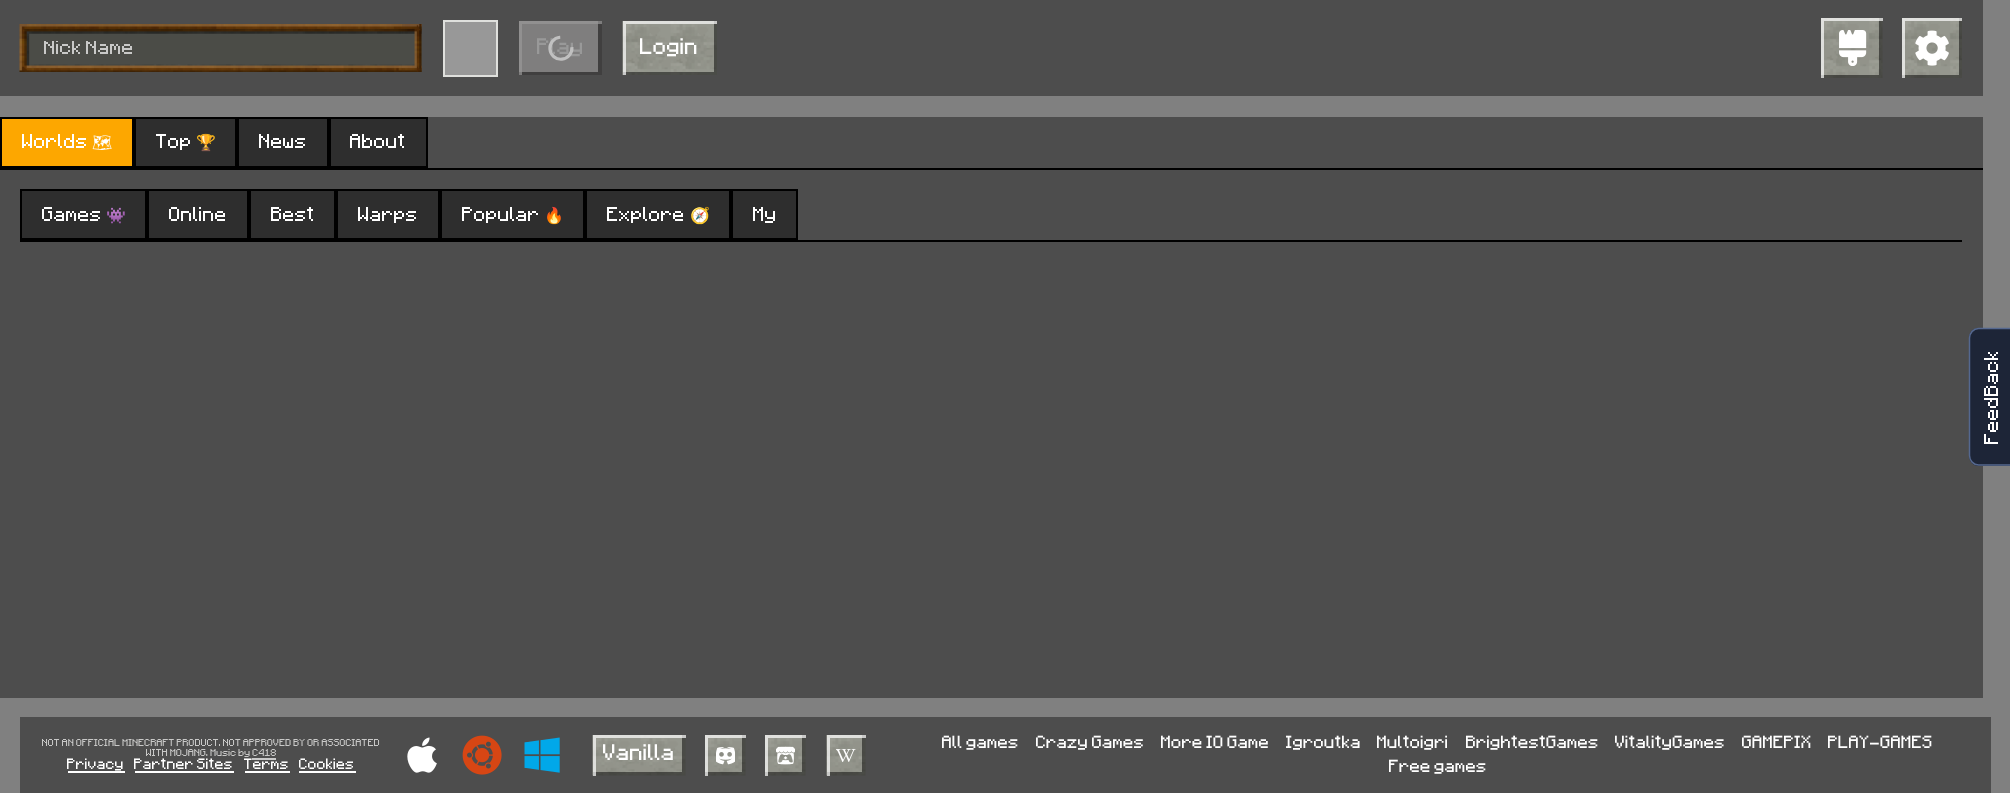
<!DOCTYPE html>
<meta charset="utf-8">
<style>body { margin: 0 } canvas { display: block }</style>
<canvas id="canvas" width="2010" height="793"></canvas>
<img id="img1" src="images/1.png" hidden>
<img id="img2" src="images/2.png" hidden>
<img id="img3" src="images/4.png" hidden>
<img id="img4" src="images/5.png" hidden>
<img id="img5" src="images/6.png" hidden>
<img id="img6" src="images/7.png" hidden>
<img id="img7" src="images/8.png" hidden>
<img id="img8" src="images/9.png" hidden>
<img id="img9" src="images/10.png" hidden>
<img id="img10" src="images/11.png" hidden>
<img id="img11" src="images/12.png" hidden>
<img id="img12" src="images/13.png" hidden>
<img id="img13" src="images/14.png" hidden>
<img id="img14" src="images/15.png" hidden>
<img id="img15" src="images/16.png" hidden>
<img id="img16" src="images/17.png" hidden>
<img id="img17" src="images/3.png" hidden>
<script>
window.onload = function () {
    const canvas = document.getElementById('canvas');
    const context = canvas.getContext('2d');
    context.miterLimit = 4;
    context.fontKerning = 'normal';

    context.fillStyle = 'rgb(128, 128, 128)';
    context.fillRect(0, 0, 2010, 793);
    context.fillStyle = 'rgb(77, 77, 77)';
    context.fillRect(0, 0, 1983, 96);
    context.drawImage(document.getElementById('img1'), 19, 24, 403, 48);
    context.drawImage(document.getElementById('img2'), 402, 24, 20, 48);
    context.fillStyle = 'rgb(152, 152, 152)';
    context.beginPath();
    context.rect(444, 21, 53, 55);
    context.fill();
    context.strokeStyle = 'rgb(223, 224, 221)';
    context.lineWidth = 2;
    context.stroke();
    context.fillStyle = 'rgb(127, 126, 126)';
    context.fillRect(519, 21, 79, 51);
    context.save();
    context.beginPath();
    context.rect(519, 21, 83, 54);
    context.clip();
    context.fillStyle = 'rgb(64, 63, 63)';
    context.beginPath();
    context.moveTo(370, -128);
    context.lineTo(750, -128);
    context.lineTo(750, 224);
    context.lineTo(370, 224);
    context.closePath();
    context.moveTo(516, 18);
    context.lineTo(598, 18);
    context.lineTo(598, 72);
    context.lineTo(516, 72);
    context.closePath();
    context.fill('evenodd');
    context.fillStyle = 'rgba(153, 153, 153, 0.7)';
    context.beginPath();
    context.moveTo(370, -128);
    context.lineTo(750, -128);
    context.lineTo(750, 224);
    context.lineTo(370, 224);
    context.closePath();
    context.moveTo(522, 24);
    context.lineTo(605, 24);
    context.lineTo(605, 78);
    context.lineTo(522, 78);
    context.closePath();
    context.fill('evenodd');
    context.restore();
    context.drawImage(document.getElementById('img3'), 622, 21, 95, 54);
    context.fillStyle = 'rgb(152, 152, 152)';
    context.fillRect(1882, 18, 1, 60);
    context.drawImage(document.getElementById('img4'), 1821, 18, 62, 60);
    context.save();
    context.beginPath();
    context.rect(1821, 18, 62, 60);
    context.clip();
    context.fillStyle = 'rgba(0, 0, 0, 0.5)';
    context.beginPath();
    context.moveTo(1672, -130);
    context.lineTo(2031, -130);
    context.lineTo(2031, 226);
    context.lineTo(1672, 226);
    context.closePath();
    context.moveTo(1818, 15);
    context.lineTo(1879, 15);
    context.lineTo(1879, 75);
    context.lineTo(1818, 75);
    context.closePath();
    context.fill('evenodd');
    context.fillStyle = 'rgba(255, 255, 255, 0.7)';
    context.beginPath();
    context.moveTo(1672, -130);
    context.lineTo(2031, -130);
    context.lineTo(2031, 226);
    context.lineTo(1672, 226);
    context.closePath();
    context.moveTo(1824, 21);
    context.lineTo(1886, 21);
    context.lineTo(1886, 81);
    context.lineTo(1824, 81);
    context.closePath();
    context.fill('evenodd');
    context.restore();
    context.drawImage(document.getElementById('img5'), 1839, 30, 28, 36);
    context.drawImage(document.getElementById('img6'), 1902, 18, 60, 60);
    context.drawImage(document.getElementById('img7'), 1915, 30, 34, 36);
    context.fillStyle = 'rgb(77, 77, 77)';
    context.fillRect(0, 117, 1983, 581);
    context.fillStyle = 'rgb(0, 0, 0)';
    context.fillRect(0, 168, 1983, 2);
    context.fillStyle = 'rgb(253, 167, 0)';
    context.beginPath();
    context.rect(1, 118, 132, 49);
    context.fill();
    context.strokeStyle = 'rgb(0, 0, 0)';
    context.stroke();
    context.fillStyle = 'rgb(46, 46, 46)';
    context.beginPath();
    context.rect(135, 118, 101, 49);
    context.fill();
    context.stroke();
    context.beginPath();
    context.rect(238, 118, 90, 49);
    context.fill();
    context.stroke();
    context.beginPath();
    context.rect(330, 118, 97, 49);
    context.fill();
    context.stroke();
    context.fillStyle = 'rgb(0, 0, 0)';
    context.fillRect(20, 240, 1942, 2);
    context.fillStyle = 'rgb(46, 46, 46)';
    context.beginPath();
    context.rect(21, 190, 125, 49);
    context.fill();
    context.stroke();
    context.beginPath();
    context.rect(148, 190, 100, 49);
    context.fill();
    context.stroke();
    context.beginPath();
    context.rect(250, 190, 85, 49);
    context.fill();
    context.stroke();
    context.beginPath();
    context.rect(337, 190, 102, 49);
    context.fill();
    context.stroke();
    context.beginPath();
    context.rect(441, 190, 143, 49);
    context.fill();
    context.stroke();
    context.beginPath();
    context.rect(586, 190, 144, 49);
    context.fill();
    context.stroke();
    context.beginPath();
    context.rect(732, 190, 65, 49);
    context.fill();
    context.stroke();
    context.fillStyle = 'rgb(77, 77, 77)';
    context.fillRect(20, 717, 1971, 76);
    context.fillStyle = 'rgb(202, 202, 202)';
    context.fillRect(252, 758, 24, 2);
    context.fillStyle = 'rgb(255, 255, 255)';
    context.fillRect(68, 771, 57, 2);
    context.fillRect(135, 771, 99, 2);
    context.fillRect(245, 771, 45, 2);
    context.fillRect(299, 771, 57, 2);
    context.drawImage(document.getElementById('img8'), 407, 737, 30, 36);
    context.drawImage(document.getElementById('img9'), 462, 735, 40, 40);
    context.drawImage(document.getElementById('img10'), 524, 737, 36, 36);
    context.fillStyle = 'rgb(152, 152, 152)';
    context.fillRect(593, 735, 93, 41);
    context.drawImage(document.getElementById('img11'), 592, 735, 94, 41);
    context.save();
    context.beginPath();
    context.rect(593, 735, 93, 41);
    context.clip();
    context.fillStyle = 'rgba(0, 0, 0, 0.5)';
    context.beginPath();
    context.moveTo(444, 586);
    context.lineTo(834, 586);
    context.lineTo(834, 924);
    context.lineTo(444, 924);
    context.closePath();
    context.moveTo(589, 732);
    context.lineTo(682, 732);
    context.lineTo(682, 772);
    context.lineTo(589, 772);
    context.closePath();
    context.fill('evenodd');
    context.fillStyle = 'rgba(255, 255, 255, 0.7)';
    context.beginPath();
    context.moveTo(444, 586);
    context.lineTo(834, 586);
    context.lineTo(834, 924);
    context.lineTo(444, 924);
    context.closePath();
    context.moveTo(596, 738);
    context.lineTo(689, 738);
    context.lineTo(689, 779);
    context.lineTo(596, 779);
    context.closePath();
    context.fill('evenodd');
    context.restore();
    context.fillRect(705, 735, 41, 41);
    context.drawImage(document.getElementById('img12'), 705, 735, 41, 41);
    context.save();
    context.beginPath();
    context.rect(705, 735, 41, 41);
    context.clip();
    context.fillStyle = 'rgba(0, 0, 0, 0.5)';
    context.beginPath();
    context.moveTo(556, 586);
    context.lineTo(894, 586);
    context.lineTo(894, 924);
    context.lineTo(556, 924);
    context.closePath();
    context.moveTo(702, 732);
    context.lineTo(742, 732);
    context.lineTo(742, 772);
    context.lineTo(702, 772);
    context.closePath();
    context.fill('evenodd');
    context.fillStyle = 'rgba(255, 255, 255, 0.7)';
    context.beginPath();
    context.moveTo(556, 586);
    context.lineTo(894, 586);
    context.lineTo(894, 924);
    context.lineTo(556, 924);
    context.closePath();
    context.moveTo(708, 738);
    context.lineTo(749, 738);
    context.lineTo(749, 779);
    context.lineTo(708, 779);
    context.closePath();
    context.fill('evenodd');
    context.restore();
    context.drawImage(document.getElementById('img13'), 716, 747, 19, 18);
    context.fillRect(765, 735, 41, 41);
    context.drawImage(document.getElementById('img12'), 765, 735, 41, 41);
    context.save();
    context.beginPath();
    context.rect(765, 735, 41, 41);
    context.clip();
    context.fillStyle = 'rgba(0, 0, 0, 0.5)';
    context.beginPath();
    context.moveTo(616, 586);
    context.lineTo(954, 586);
    context.lineTo(954, 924);
    context.lineTo(616, 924);
    context.closePath();
    context.moveTo(762, 732);
    context.lineTo(802, 732);
    context.lineTo(802, 772);
    context.lineTo(762, 772);
    context.closePath();
    context.fill('evenodd');
    context.fillStyle = 'rgba(255, 255, 255, 0.7)';
    context.beginPath();
    context.moveTo(616, 586);
    context.lineTo(954, 586);
    context.lineTo(954, 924);
    context.lineTo(616, 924);
    context.closePath();
    context.moveTo(768, 738);
    context.lineTo(809, 738);
    context.lineTo(809, 779);
    context.lineTo(768, 779);
    context.closePath();
    context.fill('evenodd');
    context.restore();
    context.drawImage(document.getElementById('img14'), 776, 746, 19, 19);
    context.fillRect(827, 735, 39, 41);
    context.drawImage(document.getElementById('img15'), 826, 735, 40, 41);
    context.save();
    context.beginPath();
    context.rect(827, 735, 39, 41);
    context.clip();
    context.fillStyle = 'rgba(0, 0, 0, 0.5)';
    context.beginPath();
    context.moveTo(678, 586);
    context.lineTo(1014, 586);
    context.lineTo(1014, 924);
    context.lineTo(678, 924);
    context.closePath();
    context.moveTo(823, 732);
    context.lineTo(862, 732);
    context.lineTo(862, 772);
    context.lineTo(823, 772);
    context.closePath();
    context.fill('evenodd');
    context.fillStyle = 'rgba(255, 255, 255, 0.7)';
    context.beginPath();
    context.moveTo(678, 586);
    context.lineTo(1014, 586);
    context.lineTo(1014, 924);
    context.lineTo(678, 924);
    context.closePath();
    context.moveTo(830, 738);
    context.lineTo(869, 738);
    context.lineTo(869, 779);
    context.lineTo(830, 779);
    context.closePath();
    context.fill('evenodd');
    context.restore();
    context.drawImage(document.getElementById('img16'), 836, 749, 20, 13);
    context.fillStyle = 'rgb(29, 37, 55)';
    context.beginPath();
    context.moveTo(1969, 456);
    context.lineTo(1969, 338);
    context.bezierCurveTo(1969, 332, 1973, 328, 1979, 328);
    context.lineTo(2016, 328);
    context.lineTo(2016, 466);
    context.lineTo(1979, 466);
    context.bezierCurveTo(1973, 466, 1969, 461, 1969, 456);
    context.closePath();
    context.fill();
    context.beginPath();
    context.moveTo(1969.5, 455.5);
    context.lineTo(1969.5, 338);
    context.bezierCurveTo(1969.5, 333, 1973.5, 328.5, 1978.5, 328.5);
    context.lineTo(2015, 328.5);
    context.lineTo(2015, 465);
    context.lineTo(1978.5, 465);
    context.bezierCurveTo(1973.5, 465, 1969.5, 460.5, 1969.5, 455.5);
    context.closePath();
    context.strokeStyle = 'rgb(85, 104, 143)';
    context.lineWidth = 1.5;
    context.stroke();
    context.save();
    context.beginPath();
    context.rect(44, 41, 354, 15);
    context.clip();
    context.font = '16px "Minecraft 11"';
    context.fillStyle = 'rgb(201, 201, 200)';
    context.fillText('Nick Name', 44, 54);
    context.restore();
    context.font = '18px "Minecraft 11"';
    context.fillStyle = 'rgb(153, 153, 153)';
    context.fillText('Play', 537, 54);
    context.drawImage(document.getElementById('img17'), 548, 35, 26, 26);
    context.fillStyle = 'rgb(255, 255, 255)';
    context.fillText('Login', 640, 54);
    context.font = '16px "Minecraft 11"';
    context.fillText('Worlds', 22, 148);
    context.font = '16px Noto Emoji';
    context.fillText('🗺', 92, 148);
    context.font = '16px "Minecraft 11"';
    context.fillText('Top', 156, 148);
    context.font = '16px Noto Color Emoji';
    context.fillText('🏆', 196, 148);
    context.font = '16px "Minecraft 11"';
    context.fillText('News', 259, 148);
    context.fillText('About', 350, 148);
    context.fillText('Games', 42, 221);
    context.font = '16px Noto Color Emoji';
    context.fillText('👾', 106, 221);
    context.font = '16px "Minecraft 11"';
    context.fillText('Online', 169, 221);
    context.fillText('Best', 271, 221);
    context.fillText('Warps', 358, 221);
    context.fillText('Popular', 462, 221);
    context.font = '16px Noto Color Emoji';
    context.fillText('🔥', 544, 221);
    context.font = '16px "Minecraft 11"';
    context.fillText('Explore', 607, 221);
    context.font = '16px Noto Color Emoji';
    context.fillText('🧭', 690, 221);
    context.font = '16px "Minecraft 11"';
    context.fillText('My', 753, 221);
    context.font = '8.05px "Minecraft 11"';
    context.fillStyle = 'rgb(201, 201, 200)';
    context.fillText('NOT AN OFFICIAL MINECRAFT PRODUCT. NOT APPROVED BY OR ASSOCIATED', 42, 746);
    context.fillText('WITH MOJANG. Music by C418', 146, 756);
    context.font = '12px "Minecraft 11"';
    context.fillStyle = 'rgb(255, 255, 255)';
    context.fillText('Privacy', 67, 769);
    context.fillText('Partner Sites', 134, 769);
    context.fillText('Terms', 244, 769);
    context.fillText('Cookies', 299, 769);
    context.font = '18px "Minecraft 11"';
    context.fillText('Vanilla', 603, 760);
    context.font = '14px "Minecraft 11"';
    context.fillText('All games', 942, 748);
    context.fillText('Crazy Games', 1036, 748);
    context.fillText('More IO Game', 1161, 748);
    context.fillText('Igroutka', 1286, 748);
    context.fillText('Multoigri', 1377, 748);
    context.fillText('BrightestGames', 1466, 748);
    context.fillText('VitalityGames', 1615, 748);
    context.fillText('GAMEPIX', 1742, 748);
    context.fillText('PLAY-GAMES', 1828, 748);
    context.fillText('Free games', 1389, 772);
    context.font = '16px "Minecraft 11"';
    context.save();
    context.translate(1998, 444);
    context.rotate(-90 * Math.PI / 180);
    context.fillText('FeedBack', 0, 0);
    context.restore();
};
</script>
